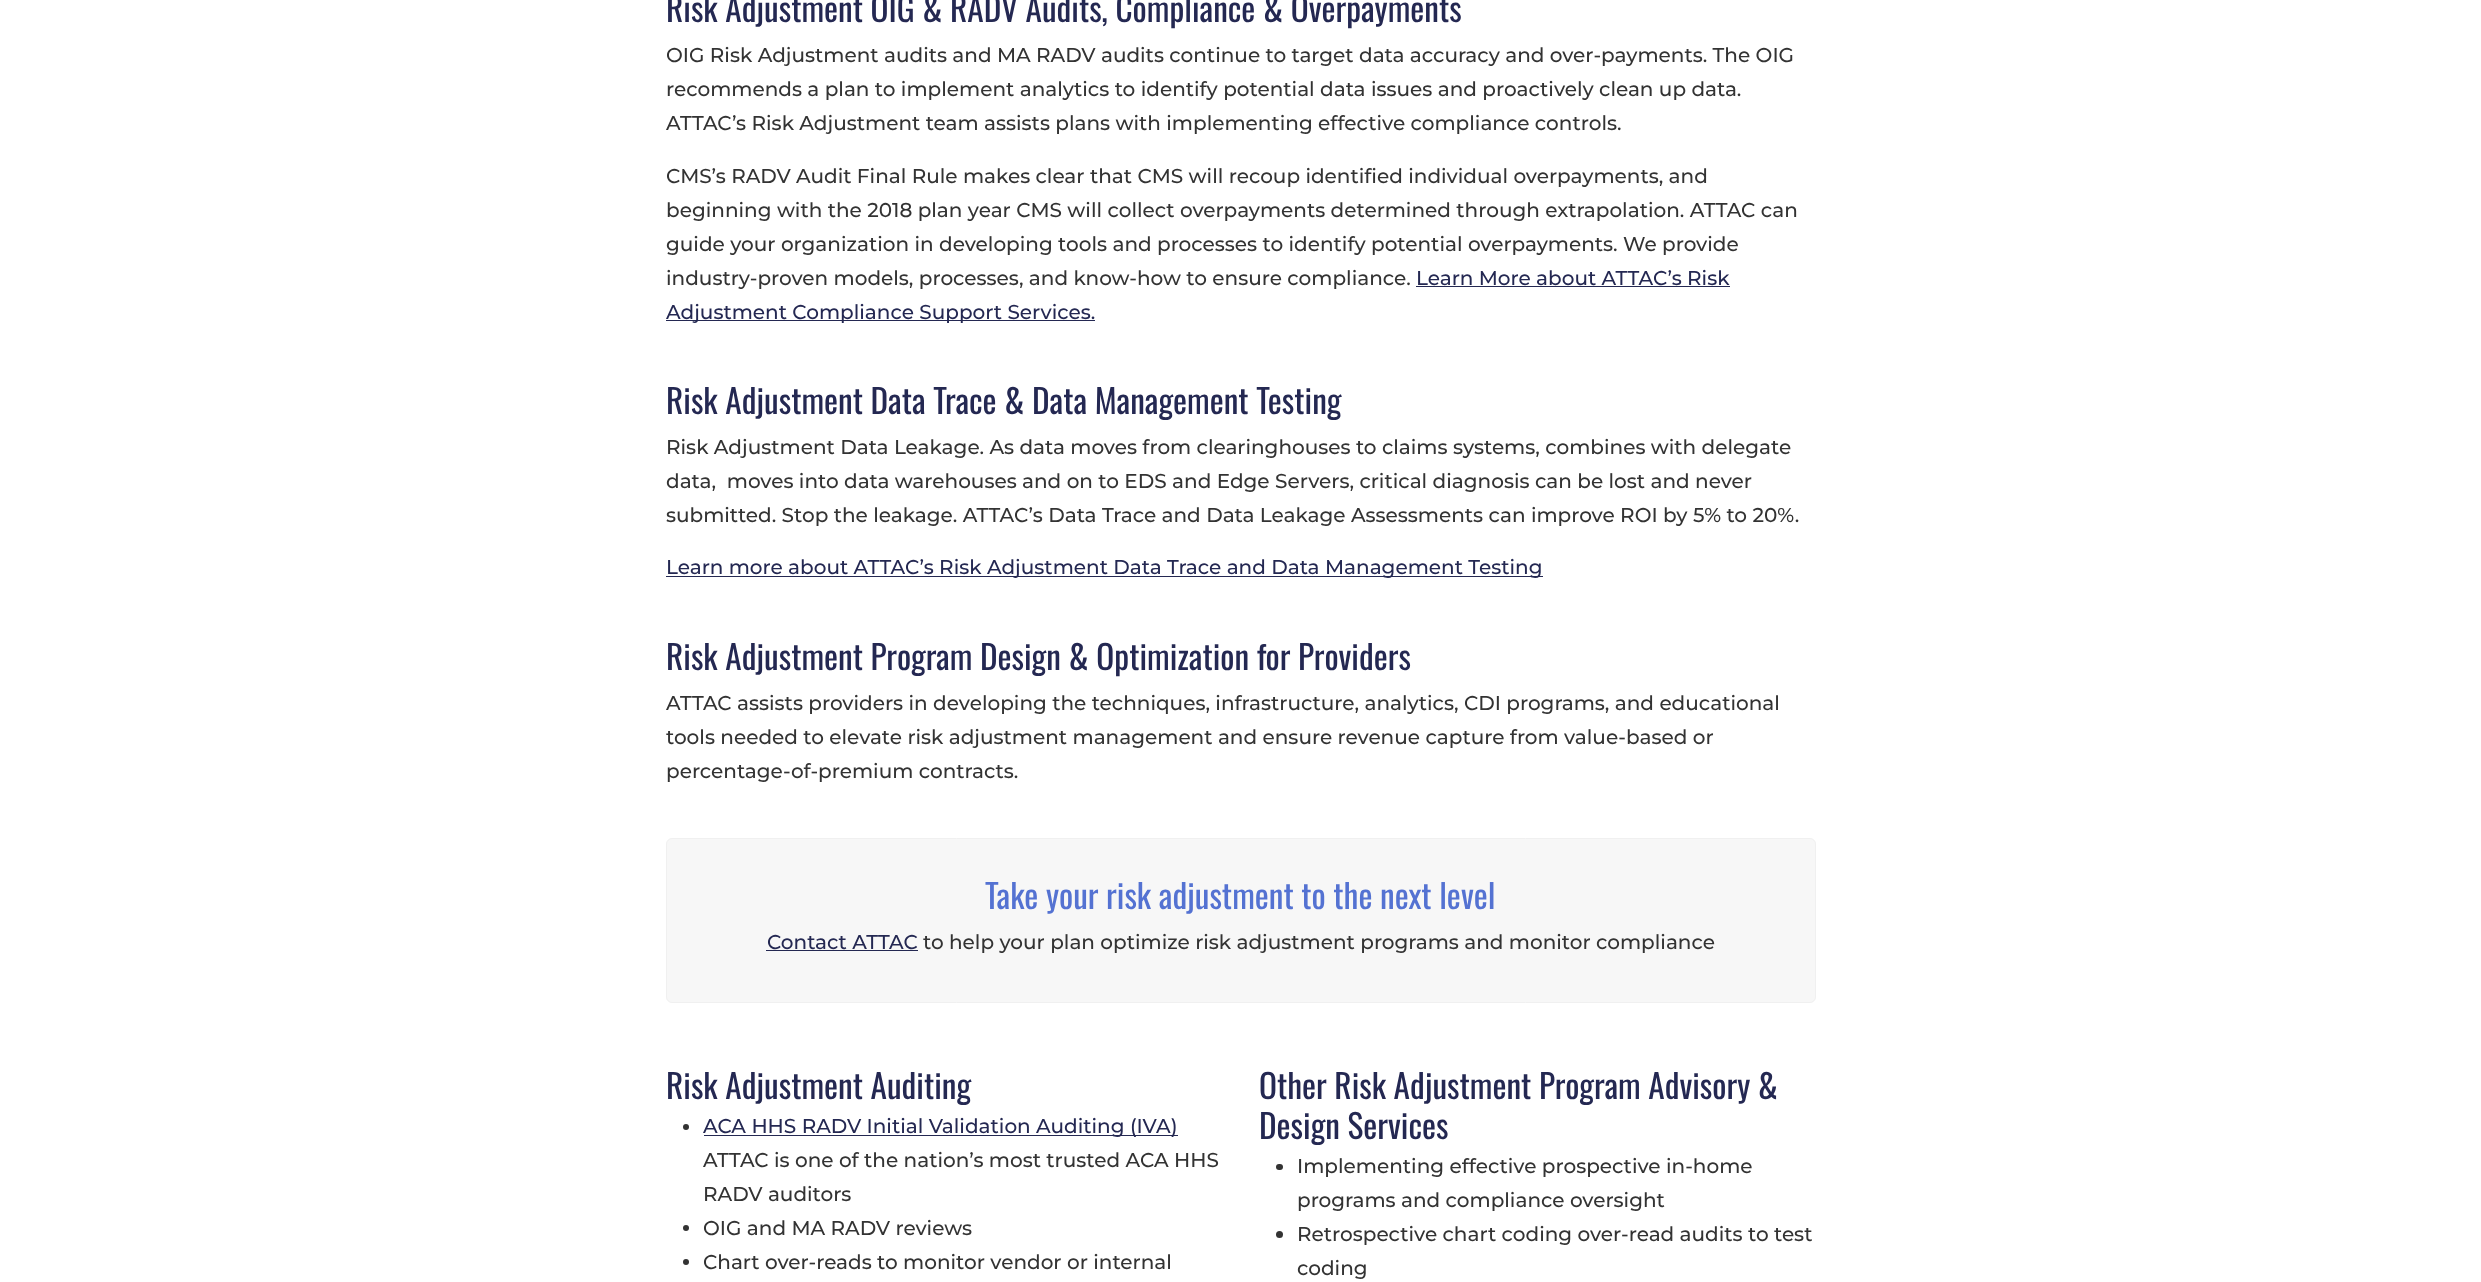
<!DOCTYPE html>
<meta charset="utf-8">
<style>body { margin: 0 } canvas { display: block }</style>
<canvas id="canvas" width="2481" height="1282"></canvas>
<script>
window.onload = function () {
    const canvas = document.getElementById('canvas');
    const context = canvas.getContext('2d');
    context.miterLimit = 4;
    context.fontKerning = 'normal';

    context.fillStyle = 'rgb(255, 255, 255)';
    context.fillRect(0, 0, 2481, 1282);
    context.fillStyle = 'rgb(36, 40, 82)';
    context.fillRect(1416, 286, 314, 1);
    context.fillRect(666, 320, 429, 1);
    context.fillRect(666, 576, 877, 1);
    context.fillStyle = 'rgb(247, 247, 247)';
    context.beginPath();
    context.roundRect(666.5, 838.5, 1149, 164, 5.5);
    context.fill();
    context.strokeStyle = 'rgb(240, 240, 240)';
    context.stroke();
    context.fillStyle = 'rgb(36, 40, 82)';
    context.fillRect(766, 950, 152, 1);
    context.fillStyle = 'rgb(51, 51, 51)';
    context.beginPath();
    context.arc(686, 1127, 3, 0, 2 * Math.PI);
    context.fill();
    context.fillStyle = 'rgb(36, 40, 82)';
    context.fillRect(704, 1135, 474, 1);
    context.fillStyle = 'rgb(51, 51, 51)';
    context.beginPath();
    context.arc(686, 1228, 3, 0, 2 * Math.PI);
    context.fill();
    context.beginPath();
    context.arc(686, 1262, 3, 0, 2 * Math.PI);
    context.fill();
    context.beginPath();
    context.roundRect(1276, 1164, 7, 6, 3);
    context.fill();
    context.beginPath();
    context.arc(1279.5, 1234.5, 3.5, 0, 2 * Math.PI);
    context.fill();
    context.font = '33.3px Oswald';
    context.fillStyle = 'rgb(36, 40, 82)';
    context.fillText('Risk Adjustment OIG & RADV Audits, Compliance & Overpayments', 666, 22);
    context.font = '500 20px Montserrat';
    context.fillStyle = 'rgb(51, 51, 51)';
    context.fillText('OIG Risk Adjustment audits and MA RADV audits continue to target data accuracy and over-payments. The OIG', 666, 62);
    context.fillText('recommends a plan to implement analytics to identify potential data issues and proactively clean up data.', 666, 96);
    context.fillText('ATTAC’s Risk Adjustment team assists plans with implementing effective compliance controls.', 666, 130);
    context.fillText('CMS’s RADV Audit Final Rule makes clear that CMS will recoup identified individual overpayments, and', 666, 183);
    context.fillText('beginning with the 2018 plan year CMS will collect overpayments determined through extrapolation. ATTAC can', 666, 217);
    context.fillText('guide your organization in developing tools and processes to identify potential overpayments. We provide', 666, 251);
    context.fillText('industry-proven models, processes, and know-how to ensure compliance.', 666, 285);
    context.fillStyle = 'rgb(36, 40, 82)';
    context.fillText('Learn More about ATTAC’s Risk', 1416, 285);
    context.fillText('Adjustment Compliance Support Services.', 666, 319);
    context.font = '33.3px Oswald';
    context.fillText('Risk Adjustment Data Trace & Data Management Testing', 666, 414);
    context.font = '500 20px Montserrat';
    context.fillStyle = 'rgb(51, 51, 51)';
    context.fillText('Risk Adjustment Data Leakage. As data moves from clearinghouses to claims systems, combines with delegate', 666, 454);
    context.fillText('data,  moves into data warehouses and on to EDS and Edge Servers, critical diagnosis can be lost and never', 666, 488);
    context.fillText('submitted. Stop the leakage. ATTAC’s Data Trace and Data Leakage Assessments can improve ROI by 5% to 20%.', 666, 522);
    context.fillStyle = 'rgb(36, 40, 82)';
    context.fillText('Learn more about ATTAC’s Risk Adjustment Data Trace and Data Management Testing', 666, 574);
    context.font = '33.3px Oswald';
    context.fillText('Risk Adjustment Program Design & Optimization for Providers', 666, 670);
    context.font = '500 20px Montserrat';
    context.fillStyle = 'rgb(51, 51, 51)';
    context.fillText('ATTAC assists providers in developing the techniques, infrastructure, analytics, CDI programs, and educational', 666, 710);
    context.fillText('tools needed to elevate risk adjustment management and ensure revenue capture from value-based or', 666, 744);
    context.fillText('percentage-of-premium contracts.', 666, 778);
    context.font = '33.3px Oswald';
    context.fillStyle = 'rgb(84, 114, 210)';
    context.fillText('Take your risk adjustment to the next level', 985, 909);
    context.font = '500 20px Montserrat';
    context.fillStyle = 'rgb(36, 40, 82)';
    context.fillText('Contact ATTAC', 767, 949);
    context.fillStyle = 'rgb(51, 51, 51)';
    context.fillText('to help your plan optimize risk adjustment programs and monitor compliance', 923, 949);
    context.font = '33.3px Oswald';
    context.fillStyle = 'rgb(36, 40, 82)';
    context.fillText('Risk Adjustment Auditing', 666, 1099);
    context.font = '500 20px Montserrat';
    context.fillText('ACA HHS RADV Initial Validation Auditing (IVA)', 703, 1133);
    context.fillStyle = 'rgb(51, 51, 51)';
    context.fillText('ATTAC is one of the nation’s most trusted ACA HHS', 703, 1167);
    context.fillText('RADV auditors', 703, 1201);
    context.fillText('OIG and MA RADV reviews', 703, 1235);
    context.fillText('Chart over-reads to monitor vendor or internal', 703, 1269);
    context.font = '33.3px Oswald';
    context.fillStyle = 'rgb(36, 40, 82)';
    context.fillText('Other Risk Adjustment Program Advisory &', 1259, 1099);
    context.fillText('Design Services', 1259, 1139);
    context.font = '500 20px Montserrat';
    context.fillStyle = 'rgb(51, 51, 51)';
    context.fillText('Implementing effective prospective in-home', 1297, 1173);
    context.fillText('programs and compliance oversight', 1297, 1207);
    context.fillText('Retrospective chart coding over-read audits to test', 1297, 1241);
    context.fillText('coding', 1297, 1275);
};
</script>
